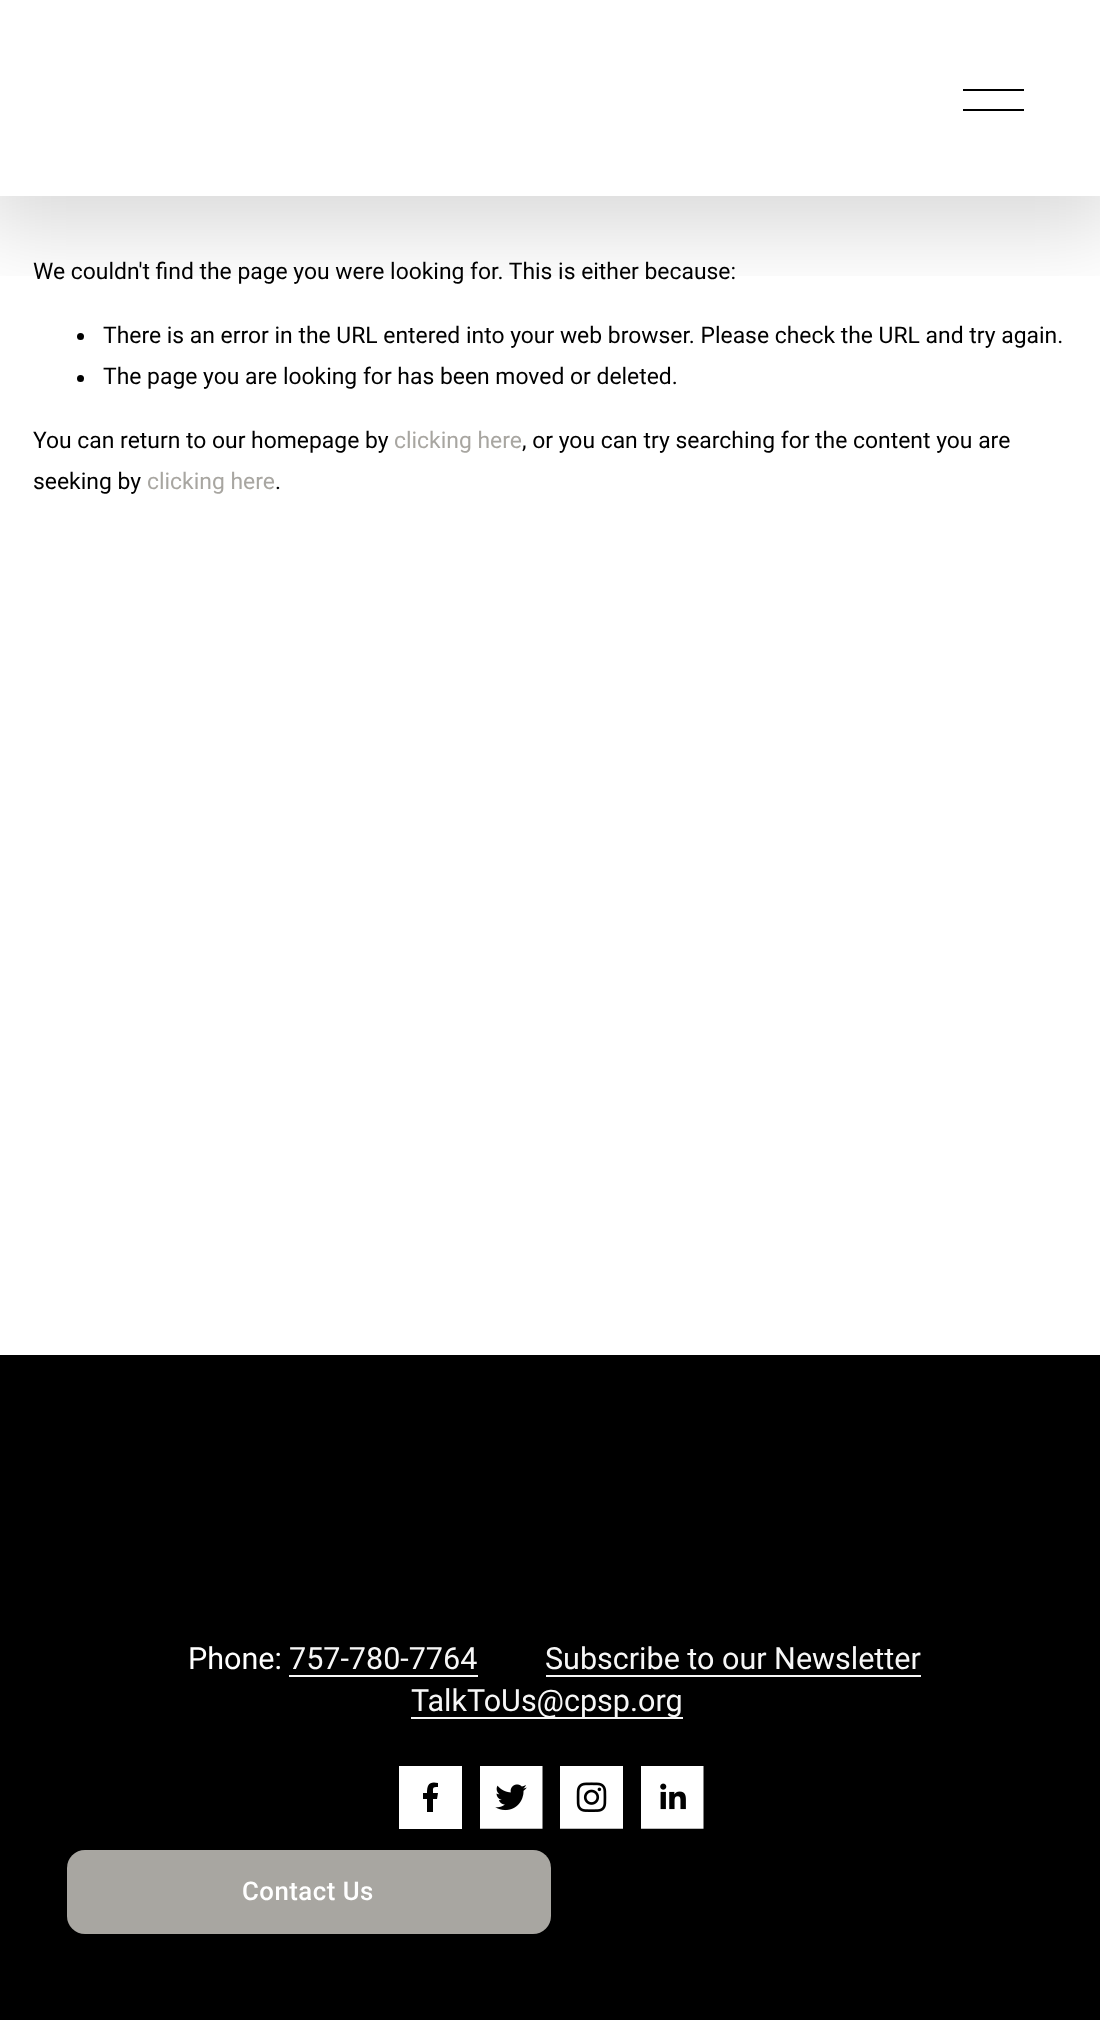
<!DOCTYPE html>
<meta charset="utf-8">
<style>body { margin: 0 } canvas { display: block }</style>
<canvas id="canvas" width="1100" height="2020"></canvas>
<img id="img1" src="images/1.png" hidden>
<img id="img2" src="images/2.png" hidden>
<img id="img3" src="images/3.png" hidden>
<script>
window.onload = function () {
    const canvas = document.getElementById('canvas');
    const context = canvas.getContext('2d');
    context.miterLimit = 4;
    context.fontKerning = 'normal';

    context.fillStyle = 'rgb(255, 255, 255)';
    context.fillRect(0, 0, 1100, 2020);
    context.fillStyle = 'rgb(0, 0, 0)';
    context.beginPath();
    context.arc(80.5, 336.5, 3.5, 0, 2 * Math.PI);
    context.fill();
    context.save();
    context.beginPath();
    context.rect(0, 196, 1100, 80);
    context.clip();
    context.fillStyle = 'rgba(0, 0, 0, 0.15)';
    context.filter = 'blur(42px)';
    context.beginPath();
    context.rect(-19, -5, 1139, 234);
    context.fill();
    context.filter = 'none';
    context.restore();
    context.fillRect(963, 89, 61, 2);
    context.fillRect(963, 109, 61, 2);
    context.beginPath();
    context.arc(80.5, 378.5, 3.5, 0, 2 * Math.PI);
    context.fill();
    context.fillRect(0, 1355, 1100, 665);
    context.fillStyle = 'rgb(247, 247, 247)';
    context.fillRect(289, 1675, 189, 2);
    context.fillRect(546, 1675, 375, 2);
    context.fillRect(411, 1717, 272, 2);
    context.fillStyle = 'rgb(255, 255, 255)';
    context.beginPath();
    context.moveTo(399, 1766);
    context.lineTo(399, 1829);
    context.lineTo(462, 1829);
    context.lineTo(462, 1766);
    context.closePath();
    context.moveTo(438, 1787);
    context.bezierCurveTo(432, 1787, 433, 1788, 433, 1793);
    context.lineTo(438, 1793);
    context.lineTo(437, 1799);
    context.lineTo(433, 1799);
    context.lineTo(433, 1812);
    context.lineTo(427, 1812);
    context.lineTo(427, 1799);
    context.lineTo(423, 1799);
    context.lineTo(423, 1793);
    context.lineTo(427, 1793);
    context.bezierCurveTo(427, 1785, 429, 1781, 438, 1783);
    context.closePath();
    context.fill();
    context.drawImage(document.getElementById('img1'), 480, 1766, 63, 63);
    context.drawImage(document.getElementById('img2'), 560, 1766, 63, 63);
    context.drawImage(document.getElementById('img3'), 641, 1766, 63, 63);
    context.fillStyle = 'rgb(168, 166, 161)';
    context.beginPath();
    context.roundRect(67, 1850, 484, 84, 18);
    context.fill();
    context.font = '22.9px Roboto';
    context.fillStyle = 'rgb(0, 0, 0)';
    context.fillText('We couldn\'t find the page you were looking for. This is either because:', 33, 279);
    context.fillText('There is an error in the URL entered into your web browser. Please check the URL and try again.', 103, 343);
    context.fillText('The page you are looking for has been moved or deleted.', 103, 384);
    context.fillText('You can return to our homepage by', 33, 448);
    context.fillStyle = 'rgb(168, 166, 161)';
    context.fillText('clicking here', 394, 448);
    context.fillStyle = 'rgb(0, 0, 0)';
    context.fillText(', or you can try searching for the content you are', 522, 448);
    context.fillText('seeking by', 33, 489);
    context.fillStyle = 'rgb(168, 166, 161)';
    context.fillText('clicking here', 147, 489);
    context.fillStyle = 'rgb(0, 0, 0)';
    context.fillText('.', 275, 489);
    context.font = '30.5px Roboto';
    context.fillStyle = 'rgb(255, 255, 255)';
    context.fillText('Phone:', 188, 1669);
    context.fillStyle = 'rgb(247, 247, 247)';
    context.fillText('757-780-7764', 289, 1669);
    context.fillText('Subscribe to our Newsletter', 545, 1669);
    context.fillText('TalkToUs@cpsp.org', 411, 1711);
    context.letterSpacing = '0.5px';
    context.font = '500 25.75px Roboto';
    context.fillStyle = 'rgb(255, 255, 255)';
    context.fillText('Contact Us', 242, 1900);
};
</script>
